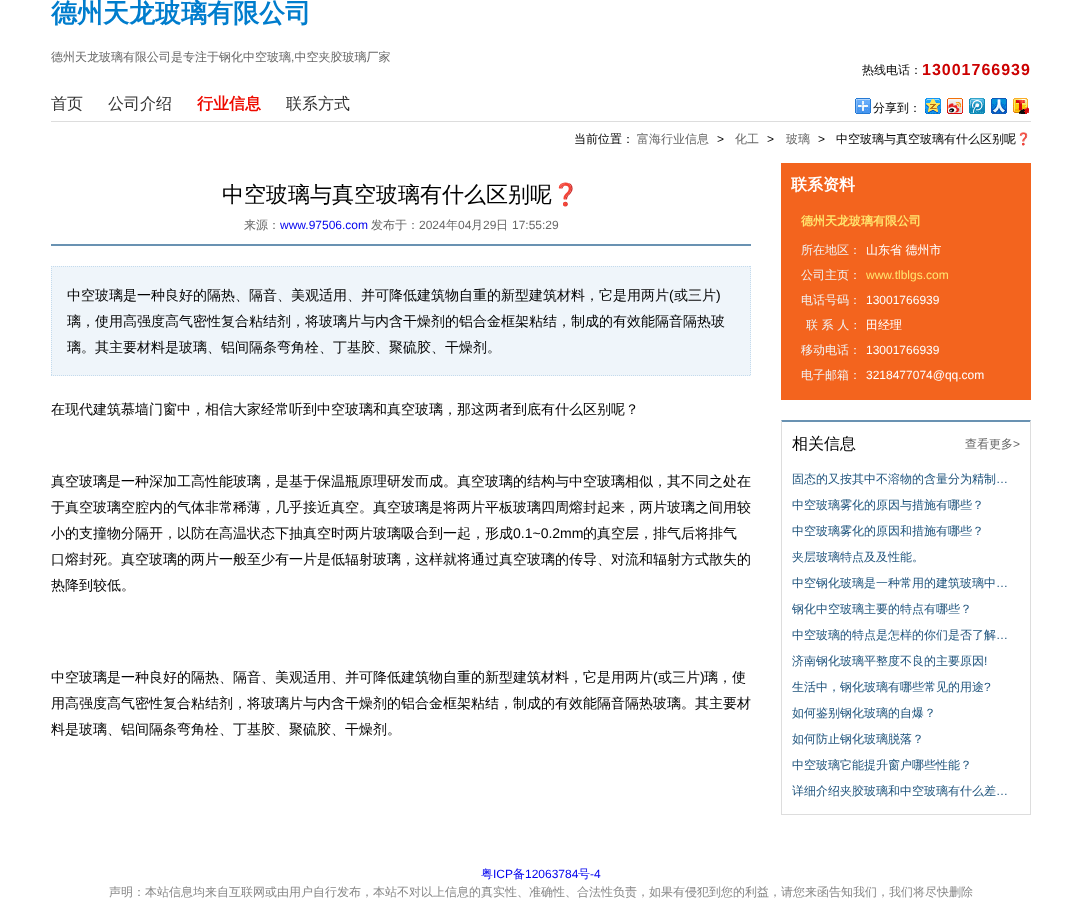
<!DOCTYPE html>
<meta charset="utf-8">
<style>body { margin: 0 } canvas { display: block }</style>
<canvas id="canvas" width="1082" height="902"></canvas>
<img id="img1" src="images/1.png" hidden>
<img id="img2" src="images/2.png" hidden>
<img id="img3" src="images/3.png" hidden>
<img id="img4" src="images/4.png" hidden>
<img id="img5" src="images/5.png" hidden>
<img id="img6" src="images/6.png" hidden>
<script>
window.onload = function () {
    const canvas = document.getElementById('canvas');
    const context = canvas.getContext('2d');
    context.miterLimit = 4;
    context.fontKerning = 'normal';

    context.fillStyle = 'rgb(255, 255, 255)';
    context.fillRect(0, 0, 1082, 902);
    context.drawImage(document.getElementById('img1'), 855, 98, 16, 16);
    context.drawImage(document.getElementById('img2'), 925, 98, 16, 16);
    context.drawImage(document.getElementById('img3'), 947, 98, 16, 16);
    context.drawImage(document.getElementById('img4'), 969, 98, 16, 16);
    context.drawImage(document.getElementById('img5'), 991, 98, 16, 16);
    context.drawImage(document.getElementById('img6'), 1013, 98, 16, 16);
    context.fillStyle = 'rgb(221, 221, 221)';
    context.fillRect(51, 121, 980, 1);
    context.fillStyle = 'rgb(105, 146, 178)';
    context.fillRect(51, 244, 700, 2);
    context.fillStyle = 'rgb(239, 245, 250)';
    context.fillRect(51, 266, 700, 110);
    context.beginPath();
    context.moveTo(51, 266.5);
    context.lineTo(751, 266.5);
    context.strokeStyle = 'rgb(196, 219, 237)';
    context.setLineDash([1, 1]);
    context.stroke();
    context.beginPath();
    context.moveTo(750.5, 266);
    context.lineTo(750.5, 376);
    context.stroke();
    context.beginPath();
    context.moveTo(51, 375.5);
    context.lineTo(751, 375.5);
    context.stroke();
    context.beginPath();
    context.moveTo(51.5, 266);
    context.lineTo(51.5, 376);
    context.stroke();
    context.fillStyle = 'rgb(243, 100, 30)';
    context.fillRect(781, 163, 250, 237);
    context.fillStyle = 'rgb(105, 146, 178)';
    context.beginPath();
    context.moveTo(781, 420);
    context.lineTo(1031, 420);
    context.lineTo(1030, 422);
    context.lineTo(782, 422);
    context.closePath();
    context.fill();
    context.fillStyle = 'rgb(221, 221, 221)';
    context.beginPath();
    context.moveTo(1031, 420);
    context.lineTo(1031, 815);
    context.lineTo(1030, 814);
    context.lineTo(1030, 422);
    context.closePath();
    context.fill();
    context.fillRect(781, 814, 250, 1);
    context.beginPath();
    context.moveTo(781, 815);
    context.lineTo(781, 420);
    context.lineTo(782, 422);
    context.lineTo(782, 814);
    context.closePath();
    context.fill();
    context.font = 'bold 26px WenQuanYi Zen Hei';
    context.fillStyle = 'rgb(0, 125, 205)';
    context.fillText('德州天龙玻璃有限公司', 51, 22);
    context.font = '500 12px WenQuanYi Zen Hei';
    context.fillStyle = 'rgb(102, 102, 102)';
    context.fillText('德州天龙玻璃有限公司是专注于钢化中空玻璃 中空夹胶玻璃厂家', 51, 61);
    context.font = '12px Liberation Sans';
    context.fillText(',', 291, 61);
    context.font = '500 12px WenQuanYi Zen Hei';
    context.fillStyle = 'rgb(0, 0, 0)';
    context.fillText('热线电话：', 862, 74);
    context.letterSpacing = '1px';
    context.font = 'bold 16px Liberation Sans';
    context.fillStyle = 'rgb(204, 0, 0)';
    context.fillText('13001766939', 922, 75);
    context.letterSpacing = '0px';
    context.font = '500 12px WenQuanYi Zen Hei';
    context.fillStyle = 'rgb(0, 0, 0)';
    context.fillText('分享到：', 873, 112);
    context.font = '500 16px WenQuanYi Zen Hei';
    context.fillStyle = 'rgb(51, 51, 51)';
    context.fillText('首页', 51, 109);
    context.fillText('公司介绍', 108, 109);
    context.font = 'bold 16px WenQuanYi Zen Hei';
    context.fillStyle = 'rgb(238, 11, 0)';
    context.fillText('行业信息', 197, 109);
    context.font = '500 16px WenQuanYi Zen Hei';
    context.fillStyle = 'rgb(51, 51, 51)';
    context.fillText('联系方式', 286, 109);
    context.font = '500 12px WenQuanYi Zen Hei';
    context.fillStyle = 'rgb(0, 0, 0)';
    context.fillText('当前位置：', 574, 143);
    context.fillStyle = 'rgb(102, 102, 102)';
    context.fillText('富海行业信息', 637, 143);
    context.font = '12px Liberation Sans';
    context.fillStyle = 'rgb(0, 0, 0)';
    context.fillText('>', 717, 143);
    context.font = '500 12px WenQuanYi Zen Hei';
    context.fillStyle = 'rgb(102, 102, 102)';
    context.fillText('化工', 735, 143);
    context.font = '12px Liberation Sans';
    context.fillStyle = 'rgb(0, 0, 0)';
    context.fillText('>', 767, 143);
    context.font = '500 12px WenQuanYi Zen Hei';
    context.fillStyle = 'rgb(102, 102, 102)';
    context.fillText('玻璃', 786, 143);
    context.font = '12px Liberation Sans';
    context.fillStyle = 'rgb(0, 0, 0)';
    context.fillText('>', 818, 143);
    context.font = '500 12px WenQuanYi Zen Hei';
    context.fillText('中空玻璃与真空玻璃有什么区别呢', 836, 143);
    context.font = '12px Noto Color Emoji';
    context.fillText('❓', 1016, 143);
    context.font = '500 22px WenQuanYi Zen Hei';
    context.fillText('中空玻璃与真空玻璃有什么区别呢', 222, 202);
    context.font = '22px Noto Color Emoji';
    context.fillText('❓', 552, 202);
    context.font = '500 12px WenQuanYi Zen Hei';
    context.fillStyle = 'rgb(102, 102, 102)';
    context.fillText('来源：', 244, 229);
    context.font = '12px Liberation Sans';
    context.fillStyle = 'rgb(0, 0, 238)';
    context.fillText('www.97506.com', 280, 229);
    context.font = '500 12px WenQuanYi Zen Hei';
    context.fillStyle = 'rgb(102, 102, 102)';
    context.fillText('发布于：', 371, 229);
    context.font = '12px Liberation Sans';
    context.fillText('2024', 419, 229);
    context.font = '500 12px WenQuanYi Zen Hei';
    context.fillText('年', 446, 229);
    context.font = '12px Liberation Sans';
    context.fillText('04', 458, 229);
    context.font = '500 12px WenQuanYi Zen Hei';
    context.fillText('月', 471, 229);
    context.font = '12px Liberation Sans';
    context.fillText('29', 483, 229);
    context.font = '500 12px WenQuanYi Zen Hei';
    context.fillText('日', 496, 229);
    context.font = '12px Liberation Sans';
    context.fillText('17:55:29', 512, 229);
    context.font = '500 14px WenQuanYi Zen Hei';
    context.fillStyle = 'rgb(0, 0, 0)';
    context.fillText('中空玻璃是一种良好的隔热、隔音、美观适用、并可降低建筑物自重的新型建筑材料，它是用两片', 67, 300);
    context.font = '14px Liberation Sans';
    context.fillText('(', 669, 300);
    context.font = '500 14px WenQuanYi Zen Hei';
    context.fillText('或三片', 674, 300);
    context.font = '14px Liberation Sans';
    context.fillText(')', 716, 300);
    context.font = '500 14px WenQuanYi Zen Hei';
    context.fillText('璃，使用高强度高气密性复合粘结剂，将玻璃片与内含干燥剂的铝合金框架粘结，制成的有效能隔音隔热玻', 67, 326);
    context.fillText('璃。其主要材料是玻璃、铝间隔条弯角栓、丁基胶、聚硫胶、干燥剂。', 67, 352);
    context.fillText('在现代建筑慕墙门窗中，相信大家经常听到中空玻璃和真空玻璃，那这两者到底有什么区别呢？', 51, 414);
    context.fillText('真空玻璃是一种深加工高性能玻璃，是基于保温瓶原理研发而成。真空玻璃的结构与中空玻璃相似，其不同之处在', 51, 486);
    context.fillText('于真空玻璃空腔内的气体非常稀薄，几乎接近真空。真空玻璃是将两片平板玻璃四周熔封起来，两片玻璃之间用较', 51, 512);
    context.fillText('小的支撞物分隔开，以防在高温状态下抽真空时两片玻璃吸合到一起，形成', 51, 538);
    context.font = '14px Liberation Sans';
    context.fillText('0.1~0.2mm', 513, 538);
    context.font = '500 14px WenQuanYi Zen Hei';
    context.fillText('的真空层，排气后将排气', 583, 538);
    context.fillText('口熔封死。真空玻璃的两片一般至少有一片是低辐射玻璃，这样就将通过真空玻璃的传导、对流和辐射方式散失的', 51, 564);
    context.fillText('热降到较低。', 51, 590);
    context.fillText('中空玻璃是一种良好的隔热、隔音、美观适用、并可降低建筑物自重的新型建筑材料，它是用两片', 51, 682);
    context.font = '14px Liberation Sans';
    context.fillText('(', 653, 682);
    context.font = '500 14px WenQuanYi Zen Hei';
    context.fillText('或三片', 658, 682);
    context.font = '14px Liberation Sans';
    context.fillText(')', 700, 682);
    context.font = '500 14px WenQuanYi Zen Hei';
    context.fillText('璃，使', 704, 682);
    context.fillText('用高强度高气密性复合粘结剂，将玻璃片与内含干燥剂的铝合金框架粘结，制成的有效能隔音隔热玻璃。其主要材', 51, 708);
    context.fillText('料是玻璃、铝间隔条弯角栓、丁基胶、聚硫胶、干燥剂。', 51, 734);
    context.font = 'bold 16px WenQuanYi Zen Hei';
    context.fillStyle = 'rgb(255, 255, 255)';
    context.fillText('联系资料', 791, 190);
    context.font = 'bold 12px WenQuanYi Zen Hei';
    context.fillStyle = 'rgb(255, 230, 111)';
    context.fillText('德州天龙玻璃有限公司', 801, 225);
    context.font = '500 12px WenQuanYi Zen Hei';
    context.fillStyle = 'rgb(241, 241, 241)';
    context.fillText('所在地区：', 801, 254);
    context.fillStyle = 'rgb(255, 255, 255)';
    context.fillText('山东省 德州市', 866, 254);
    context.fillStyle = 'rgb(241, 241, 241)';
    context.fillText('公司主页：', 801, 279);
    context.font = '12px Liberation Sans';
    context.fillStyle = 'rgb(255, 230, 111)';
    context.fillText('www.tlblgs.com', 866, 279);
    context.font = '500 12px WenQuanYi Zen Hei';
    context.fillStyle = 'rgb(241, 241, 241)';
    context.fillText('电话号码：', 801, 304);
    context.font = '12px Liberation Sans';
    context.fillStyle = 'rgb(255, 255, 255)';
    context.fillText('13001766939', 866, 304);
    context.font = '500 12px WenQuanYi Zen Hei';
    context.fillStyle = 'rgb(241, 241, 241)';
    context.fillText('联 系 人：', 806, 329);
    context.fillStyle = 'rgb(255, 255, 255)';
    context.fillText('田经理', 866, 329);
    context.fillStyle = 'rgb(241, 241, 241)';
    context.fillText('移动电话：', 801, 354);
    context.font = '12px Liberation Sans';
    context.fillStyle = 'rgb(255, 255, 255)';
    context.fillText('13001766939', 866, 354);
    context.font = '500 12px WenQuanYi Zen Hei';
    context.fillStyle = 'rgb(241, 241, 241)';
    context.fillText('电子邮箱：', 801, 379);
    context.font = '12px Liberation Sans';
    context.fillStyle = 'rgb(255, 255, 255)';
    context.fillText('3218477074@qq.com', 866, 379);
    context.font = '500 16px WenQuanYi Zen Hei';
    context.fillStyle = 'rgb(0, 0, 0)';
    context.fillText('相关信息', 792, 449);
    context.font = '500 12px WenQuanYi Zen Hei';
    context.fillStyle = 'rgb(102, 102, 102)';
    context.fillText('查看更多', 965, 448);
    context.font = '12px Liberation Sans';
    context.fillText('>', 1013, 448);
    context.font = '500 12px WenQuanYi Zen Hei';
    context.fillStyle = 'rgb(30, 83, 124)';
    context.fillText('固态的又按其中不溶物的含量分为精制', 792, 483);
    context.font = '12px Liberation Sans';
    context.fillText('…', 996, 483);
    context.font = '500 12px WenQuanYi Zen Hei';
    context.fillText('中空玻璃雾化的原因与措施有哪些？', 792, 509);
    context.fillText('中空玻璃雾化的原因和措施有哪些？', 792, 535);
    context.fillText('夹层玻璃特点及及性能。', 792, 561);
    context.fillText('中空钢化玻璃是一种常用的建筑玻璃中', 792, 587);
    context.font = '12px Liberation Sans';
    context.fillText('…', 996, 587);
    context.font = '500 12px WenQuanYi Zen Hei';
    context.fillText('钢化中空玻璃主要的特点有哪些？', 792, 613);
    context.fillText('中空玻璃的特点是怎样的你们是否了解', 792, 639);
    context.font = '12px Liberation Sans';
    context.fillText('…', 996, 639);
    context.font = '500 12px WenQuanYi Zen Hei';
    context.fillText('济南钢化玻璃平整度不良的主要原因', 792, 665);
    context.font = '12px Liberation Sans';
    context.fillText('!', 984, 665);
    context.font = '500 12px WenQuanYi Zen Hei';
    context.fillText('生活中，钢化玻璃有哪些常见的用途', 792, 691);
    context.font = '12px Liberation Sans';
    context.fillText('?', 984, 691);
    context.font = '500 12px WenQuanYi Zen Hei';
    context.fillText('如何鉴别钢化玻璃的自爆？', 792, 717);
    context.fillText('如何防止钢化玻璃脱落？', 792, 743);
    context.fillText('中空玻璃它能提升窗户哪些性能？', 792, 769);
    context.fillText('详细介绍夹胶玻璃和中空玻璃有什么差', 792, 795);
    context.font = '12px Liberation Sans';
    context.fillText('…', 996, 795);
    context.font = '500 12px WenQuanYi Zen Hei';
    context.fillStyle = 'rgb(0, 0, 238)';
    context.fillText('粤', 481, 878);
    context.font = '12px Liberation Sans';
    context.fillText('ICP', 493, 878);
    context.font = '500 12px WenQuanYi Zen Hei';
    context.fillText('备', 513, 878);
    context.font = '12px Liberation Sans';
    context.fillText('12063784', 525, 878);
    context.font = '500 12px WenQuanYi Zen Hei';
    context.fillText('号', 578, 878);
    context.font = '12px Liberation Sans';
    context.fillText('-4', 590, 878);
    context.font = '500 12px WenQuanYi Zen Hei';
    context.fillStyle = 'rgb(135, 135, 135)';
    context.fillText('声明：本站信息均来自互联网或由用户自行发布，本站不对以上信息的真实性、准确性、合法性负责，如果有侵犯到您的利益，请您来函告知我们，我们将尽快删除', 109, 896);
};
</script>
